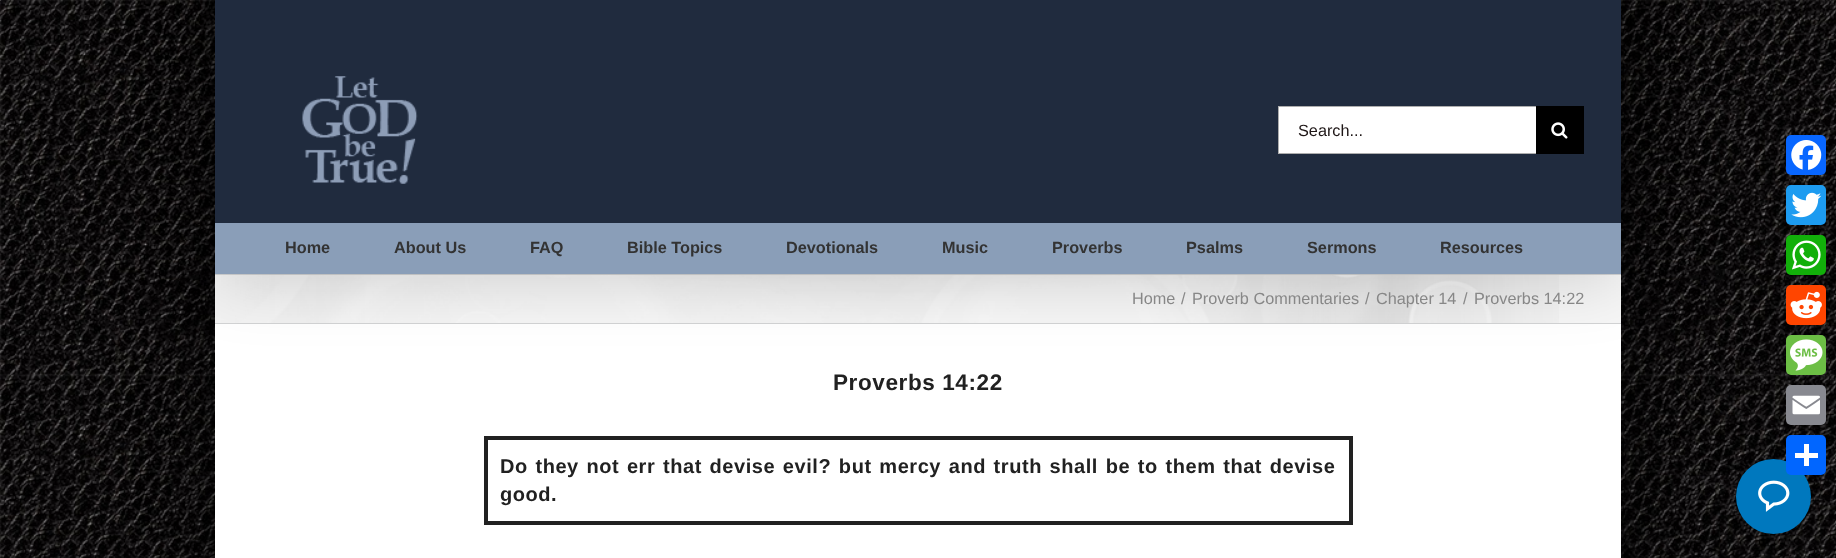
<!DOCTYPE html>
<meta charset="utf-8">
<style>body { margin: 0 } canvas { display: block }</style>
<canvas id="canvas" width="1836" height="558"></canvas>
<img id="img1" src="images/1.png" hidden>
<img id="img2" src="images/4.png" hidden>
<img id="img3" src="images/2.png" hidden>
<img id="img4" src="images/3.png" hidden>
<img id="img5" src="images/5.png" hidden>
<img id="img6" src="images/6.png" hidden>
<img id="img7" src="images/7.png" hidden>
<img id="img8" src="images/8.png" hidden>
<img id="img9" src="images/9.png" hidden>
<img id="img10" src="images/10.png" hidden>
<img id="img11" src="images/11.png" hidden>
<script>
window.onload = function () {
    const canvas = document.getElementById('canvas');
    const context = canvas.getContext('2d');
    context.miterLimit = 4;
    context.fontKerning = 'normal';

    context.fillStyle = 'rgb(255, 255, 255)';
    context.fillRect(0, 0, 1836, 558);
    context.drawImage(document.getElementById('img1'), 0, 0, 1836, 558);
    context.fillStyle = 'rgb(72, 70, 72)';
    context.fillRect(0, 0, 1, 1);
    context.fillStyle = 'rgba(0, 0, 0, 0.55)';
    context.filter = 'blur(31px)';
    context.beginPath();
    context.rect(203, -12, 1431, 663);
    context.fill();
    context.filter = 'none';
    context.fillStyle = 'rgb(246, 246, 246)';
    context.fillRect(215, 275, 1406, 48);
    context.drawImage(document.getElementById('img2'), 215, 275, 1344, 48);
    context.fillStyle = 'rgb(210, 211, 212)';
    context.fillRect(215, 274, 1406, 1);
    context.fillRect(215, 323, 1406, 1);
    context.fillStyle = 'rgb(255, 255, 255)';
    context.fillRect(215, 324, 1406, 234);
    context.fillStyle = 'rgba(0, 0, 0, 0.14)';
    context.filter = 'blur(31px)';
    context.beginPath();
    context.rect(218, 15, 1401, 269);
    context.fill();
    context.filter = 'none';
    context.fillStyle = 'rgb(32, 43, 62)';
    context.fillRect(215, 0, 1406, 223);
    context.drawImage(document.getElementById('img3'), 302, 76, 116, 108);
    context.fillStyle = 'rgb(255, 255, 255)';
    context.fillRect(1279, 107, 257, 46);
    context.fillStyle = 'rgb(173, 173, 173)';
    context.fillRect(1278, 106, 258, 1);
    context.fillRect(1278, 153, 258, 1);
    context.fillRect(1278, 106, 1, 48);
    context.fillStyle = 'rgb(0, 0, 0)';
    context.fillRect(1536, 106, 48, 48);
    context.drawImage(document.getElementById('img4'), 1551, 122, 17, 17);
    context.fillStyle = 'rgb(138, 158, 184)';
    context.fillRect(215, 223, 1406, 51);
    context.strokeStyle = 'rgb(33, 33, 33)';
    context.lineWidth = 4;
    context.strokeRect(486, 438, 865, 85);
    context.fillStyle = 'rgb(8, 102, 255)';
    context.beginPath();
    context.roundRect(1786, 135, 40, 40, 5);
    context.fill();
    context.drawImage(document.getElementById('img5'), 1791, 140, 31, 30);
    context.fillStyle = 'rgb(29, 155, 240)';
    context.beginPath();
    context.roundRect(1786, 185, 40, 40, 5);
    context.fill();
    context.drawImage(document.getElementById('img6'), 1791, 192, 31, 26);
    context.fillStyle = 'rgb(18, 175, 10)';
    context.beginPath();
    context.roundRect(1786, 235, 40, 40, 5);
    context.fill();
    context.drawImage(document.getElementById('img7'), 1792, 240, 29, 30);
    context.fillStyle = 'rgb(255, 69, 0)';
    context.beginPath();
    context.roundRect(1786, 285, 40, 40, 5);
    context.fill();
    context.drawImage(document.getElementById('img8'), 1790, 291, 32, 28);
    context.fillStyle = 'rgb(108, 190, 69)';
    context.beginPath();
    context.roundRect(1786, 335, 40, 40, 5);
    context.fill();
    context.drawImage(document.getElementById('img9'), 1790, 339, 33, 32);
    context.fillStyle = 'rgb(136, 137, 144)';
    context.beginPath();
    context.roundRect(1786, 385, 40, 40, 5);
    context.fill();
    context.drawImage(document.getElementById('img10'), 1792, 395, 28, 20);
    context.fillStyle = 'rgba(0, 0, 0, 0.2)';
    context.filter = 'blur(6px)';
    context.beginPath();
    context.roundRect(1736, 461, 75, 75, 37.5);
    context.fill();
    context.filter = 'none';
    context.fillStyle = 'rgb(0, 120, 190)';
    context.beginPath();
    context.arc(1773.5, 496.5, 37.5, 0, 2 * Math.PI);
    context.fill();
    context.fillStyle = 'rgb(1, 102, 255)';
    context.beginPath();
    context.roundRect(1786, 435, 40, 40, 5);
    context.fill();
    context.fillStyle = 'rgb(255, 255, 255)';
    context.fillRect(1804, 444, 5, 22);
    context.fillRect(1795, 453, 23, 5);
    context.drawImage(document.getElementById('img11'), 1758, 480, 32, 32);
    context.font = '16.25px Liberation Sans';
    context.fillStyle = 'rgb(30, 22, 22)';
    context.fillText('Search...', 1298, 136);
    context.font = 'bold 16.25px Liberation Sans';
    context.fillStyle = 'rgb(51, 51, 51)';
    context.fillText('Home', 285, 253);
    context.fillText('About Us', 394, 253);
    context.fillText('FAQ', 530, 253);
    context.fillText('Bible Topics', 627, 253);
    context.fillText('Devotionals', 786, 253);
    context.fillText('Music', 942, 253);
    context.fillText('Proverbs', 1052, 253);
    context.fillText('Psalms', 1186, 253);
    context.fillText('Sermons', 1307, 253);
    context.fillText('Resources', 1440, 253);
    context.font = '16.25px Liberation Sans';
    context.fillStyle = 'rgb(135, 135, 135)';
    context.fillText('Home', 1132, 304);
    context.fillText('/', 1181, 304);
    context.fillText('Proverb Commentaries', 1192, 304);
    context.fillText('/', 1365, 304);
    context.fillText('Chapter 14', 1376, 304);
    context.fillText('/', 1463, 304);
    context.fillText('Proverbs 14:22', 1474, 304);
    context.letterSpacing = '0.6px';
    context.font = 'bold 22.5px Liberation Sans';
    context.fillStyle = 'rgb(33, 33, 33)';
    context.fillText('Proverbs 14:22', 833, 390);
    context.letterSpacing = '0.55px';
    context.wordSpacing = '1.6px';
    context.font = 'bold 20px Liberation Sans';
    context.fillText('Do they not err that devise evil? but mercy and truth shall be to them that devise', 500, 473);
    context.wordSpacing = '0px';
    context.fillText('good.', 500, 501);
};
</script>
